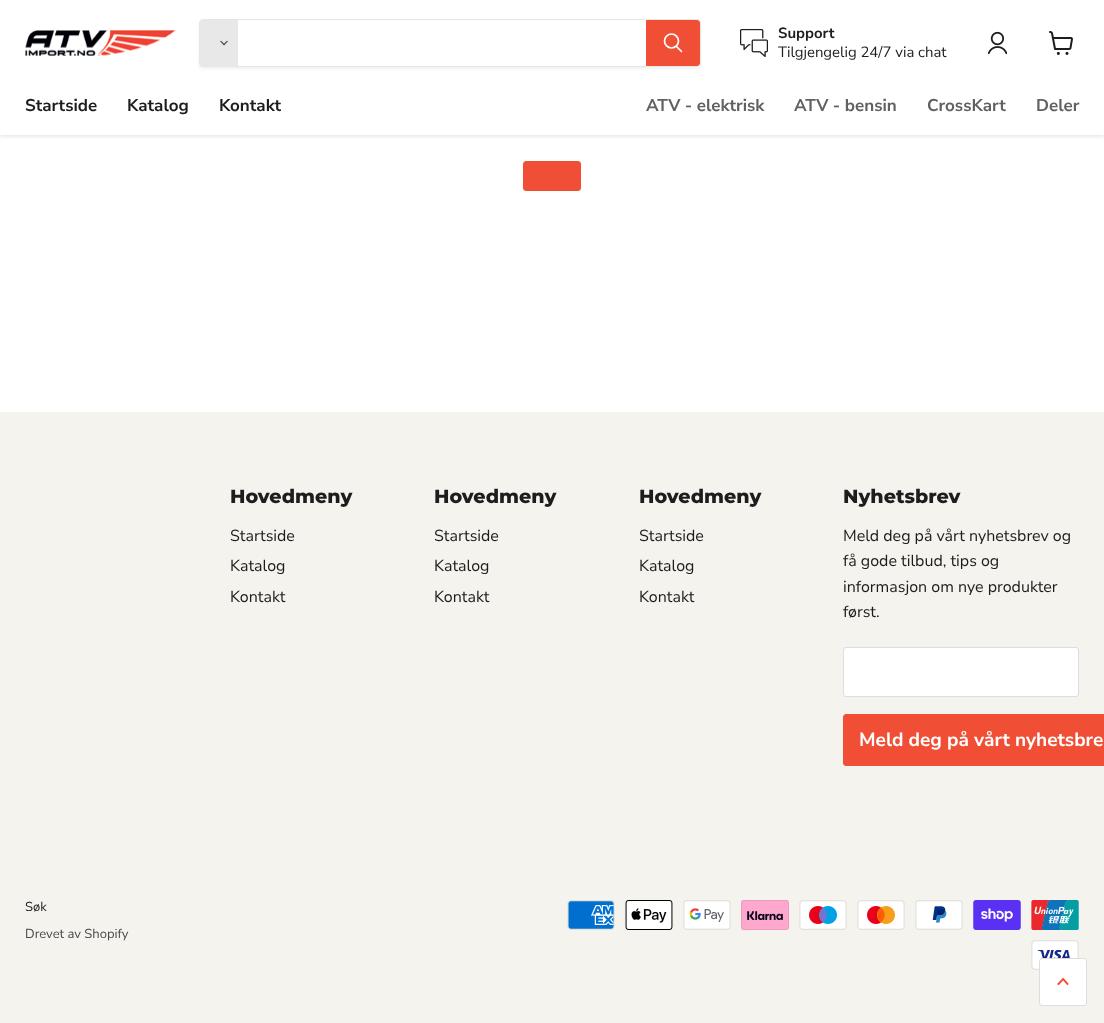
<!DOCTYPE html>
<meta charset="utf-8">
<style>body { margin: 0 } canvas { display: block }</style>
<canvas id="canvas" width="1104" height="1023"></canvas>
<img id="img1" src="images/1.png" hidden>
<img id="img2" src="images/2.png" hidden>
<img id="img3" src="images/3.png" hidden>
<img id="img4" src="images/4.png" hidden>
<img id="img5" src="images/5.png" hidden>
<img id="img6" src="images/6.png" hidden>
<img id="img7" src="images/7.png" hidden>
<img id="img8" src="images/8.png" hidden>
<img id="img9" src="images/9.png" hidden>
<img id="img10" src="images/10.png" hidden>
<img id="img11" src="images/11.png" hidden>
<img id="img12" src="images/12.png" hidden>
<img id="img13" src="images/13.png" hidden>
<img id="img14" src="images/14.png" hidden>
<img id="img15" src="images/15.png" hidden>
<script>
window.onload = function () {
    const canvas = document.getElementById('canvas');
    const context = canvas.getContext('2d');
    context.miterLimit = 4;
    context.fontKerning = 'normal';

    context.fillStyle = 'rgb(255, 255, 255)';
    context.fillRect(0, 0, 1104, 1023);
    context.save();
    context.beginPath();
    context.rect(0, 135, 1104, 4);
    context.clip();
    context.fillStyle = 'rgba(128, 128, 128, 0.25)';
    context.filter = 'blur(2px)';
    context.beginPath();
    context.rect(0, 1, 1104, 135);
    context.fill();
    context.filter = 'none';
    context.restore();
    context.drawImage(document.getElementById('img1'), 25, 30, 150, 26);
    context.save();
    context.beginPath();
    context.moveTo(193, 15);
    context.lineTo(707, 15);
    context.lineTo(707, 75);
    context.lineTo(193, 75);
    context.closePath();
    context.moveTo(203, 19);
    context.lineTo(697, 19);
    context.bezierCurveTo(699, 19, 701, 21, 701, 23);
    context.lineTo(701, 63);
    context.bezierCurveTo(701, 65, 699, 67, 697, 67);
    context.lineTo(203, 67);
    context.bezierCurveTo(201, 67, 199, 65, 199, 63);
    context.lineTo(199, 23);
    context.bezierCurveTo(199, 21, 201, 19, 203, 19);
    context.closePath();
    context.clip('evenodd');
    context.fillStyle = 'rgba(128, 128, 128, 0.11)';
    context.filter = 'blur(1.5px)';
    context.beginPath();
    context.roundRect(199, 21, 502, 48, 4);
    context.fill();
    context.filter = 'none';
    context.restore();
    context.beginPath();
    context.roundRect(199.5, 19.5, 501, 47, 3.5);
    context.strokeStyle = 'rgba(128, 128, 128, 0.2)';
    context.stroke();
    context.fillStyle = 'rgb(232, 232, 232)';
    context.beginPath();
    context.roundRect(200, 20, 38, 46, [3, 0, 0, 3]);
    context.fill();
    context.drawImage(document.getElementById('img2'), 220, 40, 8, 6);
    context.fillStyle = 'rgb(240, 79, 54)';
    context.beginPath();
    context.roundRect(646.5, 20.5, 53, 45, [0, 2.5, 2.5, 0]);
    context.fill();
    context.strokeStyle = 'rgb(240, 79, 54)';
    context.stroke();
    context.beginPath();
    context.moveTo(681.5, 51.5);
    context.lineTo(676.5, 46.5);
    context.strokeStyle = 'rgb(255, 255, 255)';
    context.lineWidth = 1.7;
    context.lineCap = 'round';
    context.stroke();
    context.beginPath();
    context.arc(671.5, 41, 7, 0, 2 * Math.PI);
    context.stroke();
    context.drawImage(document.getElementById('img3'), 740, 29, 28, 28);
    context.drawImage(document.getElementById('img4'), 987, 31, 20, 24);
    context.drawImage(document.getElementById('img5'), 1049, 31, 24, 24);
    context.beginPath();
    context.roundRect(523.5, 161.5, 57, 29, 2.5);
    context.fill();
    context.strokeStyle = 'rgb(240, 79, 54)';
    context.lineWidth = 1;
    context.stroke();
    context.fillStyle = 'rgb(245, 243, 237)';
    context.fillRect(0, 412, 1104, 611);
    context.fillStyle = 'rgb(255, 255, 255)';
    context.beginPath();
    context.roundRect(843.5, 647.5, 235, 49, 2.5);
    context.fill();
    context.strokeStyle = 'rgb(221, 221, 221)';
    context.stroke();
    context.fillStyle = 'rgb(240, 79, 54)';
    context.beginPath();
    context.roundRect(843.5, 714.5, 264, 51, 2.5);
    context.fill();
    context.strokeStyle = 'rgb(240, 79, 54)';
    context.stroke();
    context.drawImage(document.getElementById('img6'), 567, 900, 48, 30);
    context.drawImage(document.getElementById('img7'), 625, 900, 48, 30);
    context.drawImage(document.getElementById('img8'), 683, 900, 48, 30);
    context.drawImage(document.getElementById('img9'), 741, 900, 48, 30);
    context.drawImage(document.getElementById('img10'), 799, 900, 48, 30);
    context.drawImage(document.getElementById('img11'), 857, 900, 48, 30);
    context.drawImage(document.getElementById('img12'), 915, 900, 48, 30);
    context.drawImage(document.getElementById('img13'), 973, 900, 48, 30);
    context.drawImage(document.getElementById('img14'), 1031, 900, 48, 30);
    context.drawImage(document.getElementById('img15'), 1031, 940, 48, 30);
    context.fillStyle = 'rgb(255, 255, 255)';
    context.beginPath();
    context.roundRect(1039.5, 958.5, 47, 47, 2.5);
    context.fill();
    context.strokeStyle = 'rgb(221, 221, 221)';
    context.stroke();
    context.beginPath();
    context.moveTo(1063, 979);
    context.lineTo(1058.5, 984);
    context.moveTo(1063, 979);
    context.lineTo(1067.5, 984);
    context.strokeStyle = 'rgb(240, 79, 54)';
    context.lineWidth = 1.9;
    context.lineCap = 'square';
    context.stroke();
    context.font = 'bold 14.9px Nunito Sans';
    context.fillStyle = 'rgb(29, 29, 29)';
    context.fillText('Support', 778, 38);
    context.font = '14.9px Nunito Sans';
    context.fillText('Tilgjengelig 24/7 via chat', 778, 57);
    context.font = 'bold 17px Nunito Sans';
    context.fillText('Startside', 25, 111);
    context.fillText('Katalog', 127, 111);
    context.fillText('Kontakt', 219, 111);
    context.fillStyle = 'rgb(97, 97, 97)';
    context.fillText('ATV - elektrisk', 646, 111);
    context.fillText('ATV - bensin', 794, 111);
    context.fillText('CrossKart', 927, 111);
    context.fillText('Deler', 1036, 111);
    context.font = '800 19.1px Montserrat';
    context.fillStyle = 'rgb(29, 29, 29)';
    context.fillText('Hovedmeny', 230, 503);
    context.font = '16px Nunito Sans';
    context.fillText('Startside', 230, 541);
    context.fillText('Katalog', 230, 571);
    context.fillText('Kontakt', 230, 602);
    context.font = '800 19.1px Montserrat';
    context.fillText('Hovedmeny', 434, 503);
    context.font = '16px Nunito Sans';
    context.fillText('Startside', 434, 541);
    context.fillText('Katalog', 434, 571);
    context.fillText('Kontakt', 434, 602);
    context.font = '800 19.1px Montserrat';
    context.fillText('Hovedmeny', 639, 503);
    context.font = '16px Nunito Sans';
    context.fillText('Startside', 639, 541);
    context.fillText('Katalog', 639, 571);
    context.fillText('Kontakt', 639, 602);
    context.font = '800 19.1px Montserrat';
    context.fillText('Nyhetsbrev', 843, 503);
    context.font = '16px Nunito Sans';
    context.fillText('Meld deg på vårt nyhetsbrev og', 843, 541);
    context.fillText('få gode tilbud, tips og', 843, 566);
    context.fillText('informasjon om nye produkter', 843, 592);
    context.fillText('først.', 843, 617);
    context.font = 'bold 19.1px Nunito Sans';
    context.fillStyle = 'rgb(255, 255, 255)';
    context.fillText('Meld deg på vårt nyhetsbre', 859, 746);
    context.font = '13px Nunito Sans';
    context.fillStyle = 'rgb(29, 29, 29)';
    context.fillText('Søk', 25, 911);
    context.fillStyle = 'rgb(72, 72, 71)';
    context.fillText('Drevet av Shopify', 25, 938);
};
</script>
